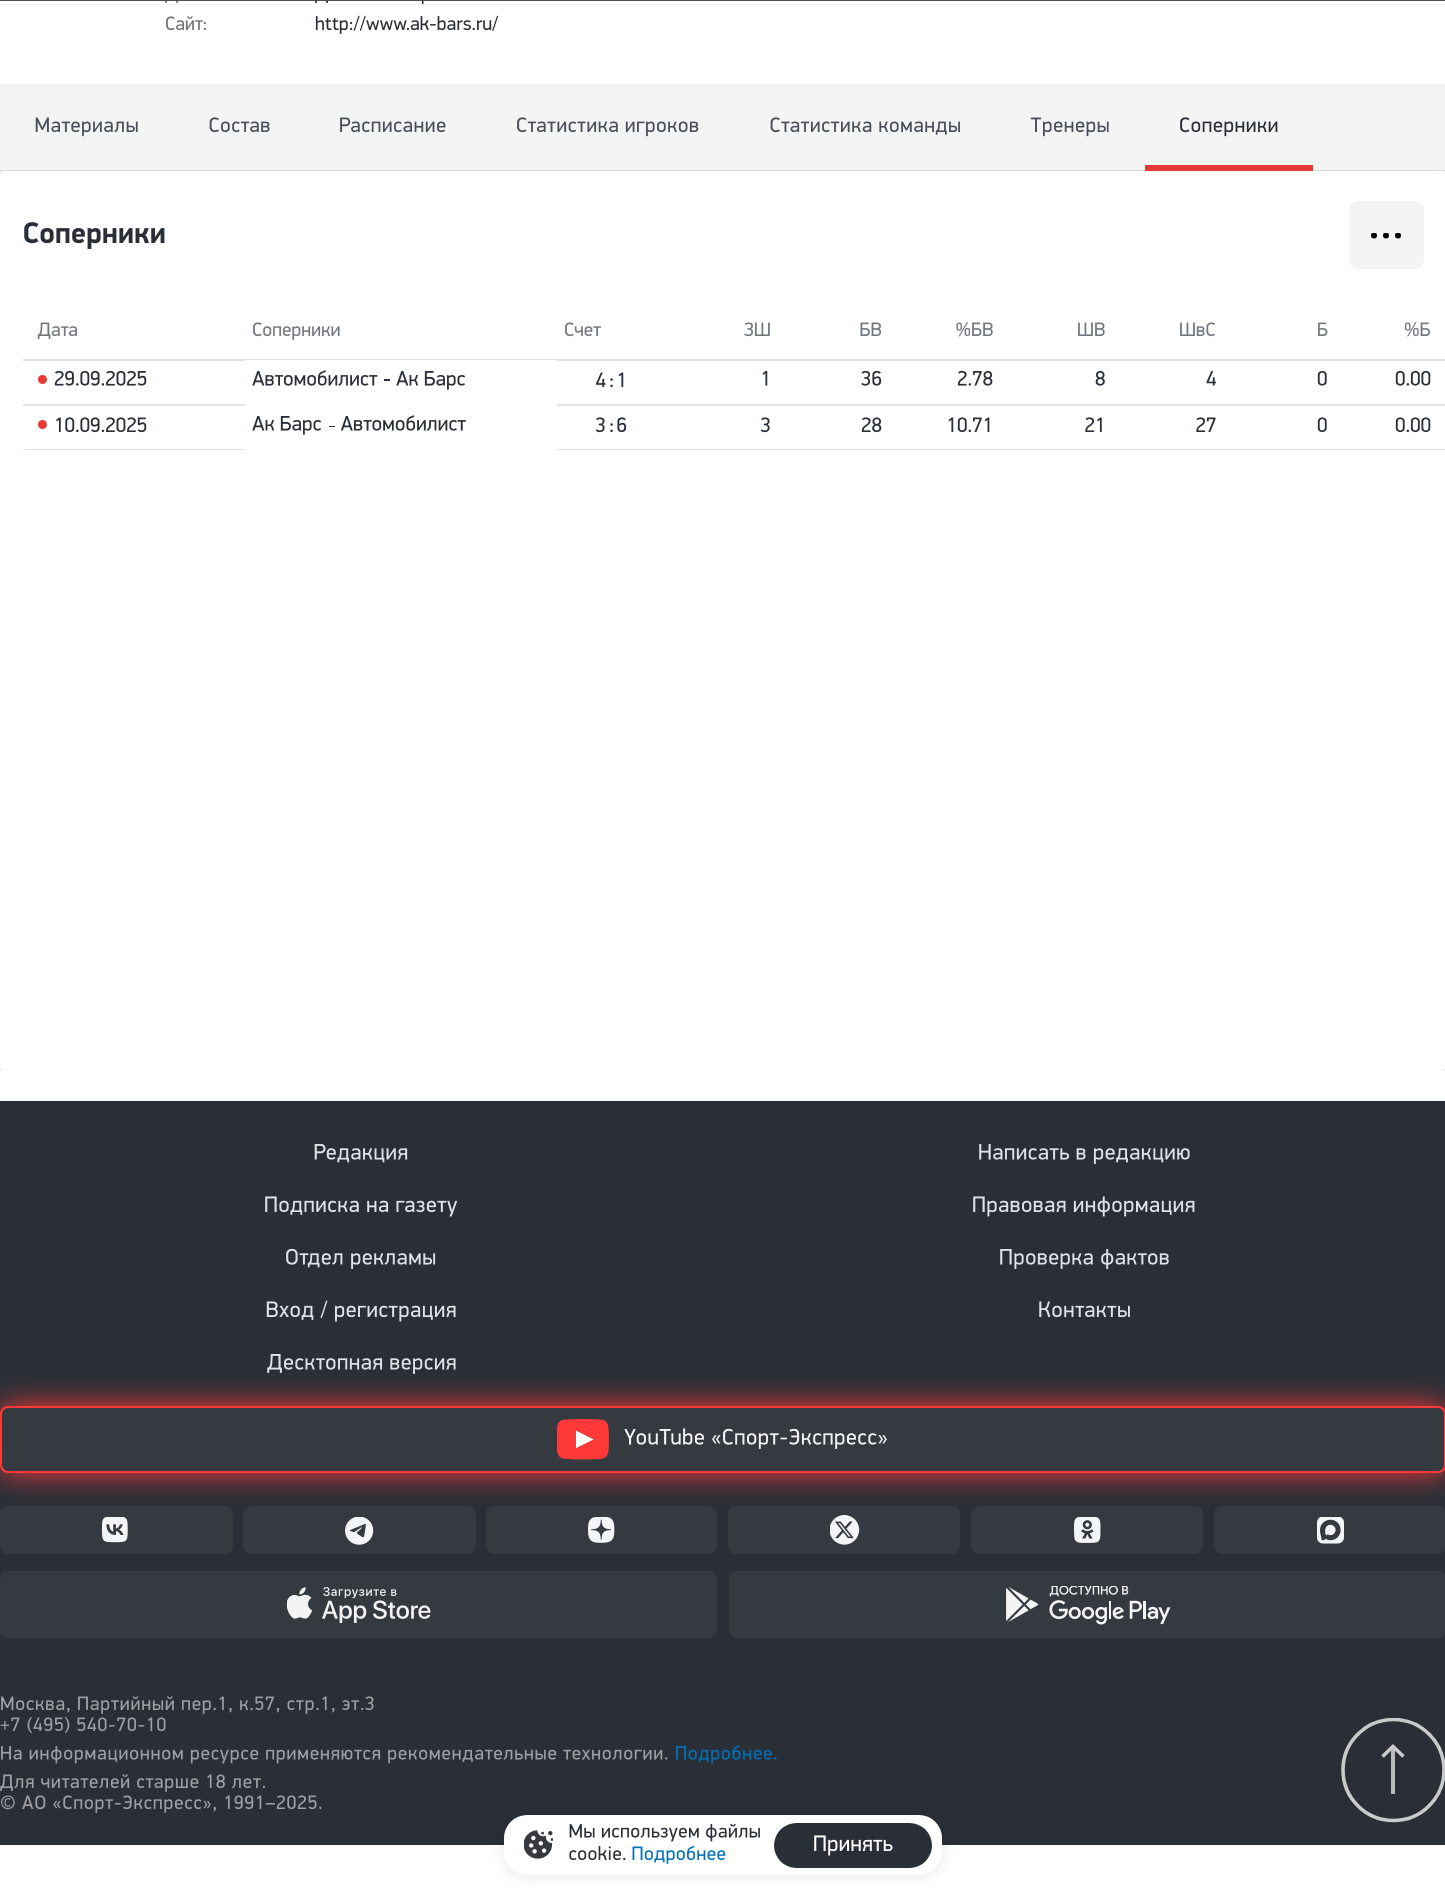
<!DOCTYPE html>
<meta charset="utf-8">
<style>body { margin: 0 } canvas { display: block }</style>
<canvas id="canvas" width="1445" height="1904"></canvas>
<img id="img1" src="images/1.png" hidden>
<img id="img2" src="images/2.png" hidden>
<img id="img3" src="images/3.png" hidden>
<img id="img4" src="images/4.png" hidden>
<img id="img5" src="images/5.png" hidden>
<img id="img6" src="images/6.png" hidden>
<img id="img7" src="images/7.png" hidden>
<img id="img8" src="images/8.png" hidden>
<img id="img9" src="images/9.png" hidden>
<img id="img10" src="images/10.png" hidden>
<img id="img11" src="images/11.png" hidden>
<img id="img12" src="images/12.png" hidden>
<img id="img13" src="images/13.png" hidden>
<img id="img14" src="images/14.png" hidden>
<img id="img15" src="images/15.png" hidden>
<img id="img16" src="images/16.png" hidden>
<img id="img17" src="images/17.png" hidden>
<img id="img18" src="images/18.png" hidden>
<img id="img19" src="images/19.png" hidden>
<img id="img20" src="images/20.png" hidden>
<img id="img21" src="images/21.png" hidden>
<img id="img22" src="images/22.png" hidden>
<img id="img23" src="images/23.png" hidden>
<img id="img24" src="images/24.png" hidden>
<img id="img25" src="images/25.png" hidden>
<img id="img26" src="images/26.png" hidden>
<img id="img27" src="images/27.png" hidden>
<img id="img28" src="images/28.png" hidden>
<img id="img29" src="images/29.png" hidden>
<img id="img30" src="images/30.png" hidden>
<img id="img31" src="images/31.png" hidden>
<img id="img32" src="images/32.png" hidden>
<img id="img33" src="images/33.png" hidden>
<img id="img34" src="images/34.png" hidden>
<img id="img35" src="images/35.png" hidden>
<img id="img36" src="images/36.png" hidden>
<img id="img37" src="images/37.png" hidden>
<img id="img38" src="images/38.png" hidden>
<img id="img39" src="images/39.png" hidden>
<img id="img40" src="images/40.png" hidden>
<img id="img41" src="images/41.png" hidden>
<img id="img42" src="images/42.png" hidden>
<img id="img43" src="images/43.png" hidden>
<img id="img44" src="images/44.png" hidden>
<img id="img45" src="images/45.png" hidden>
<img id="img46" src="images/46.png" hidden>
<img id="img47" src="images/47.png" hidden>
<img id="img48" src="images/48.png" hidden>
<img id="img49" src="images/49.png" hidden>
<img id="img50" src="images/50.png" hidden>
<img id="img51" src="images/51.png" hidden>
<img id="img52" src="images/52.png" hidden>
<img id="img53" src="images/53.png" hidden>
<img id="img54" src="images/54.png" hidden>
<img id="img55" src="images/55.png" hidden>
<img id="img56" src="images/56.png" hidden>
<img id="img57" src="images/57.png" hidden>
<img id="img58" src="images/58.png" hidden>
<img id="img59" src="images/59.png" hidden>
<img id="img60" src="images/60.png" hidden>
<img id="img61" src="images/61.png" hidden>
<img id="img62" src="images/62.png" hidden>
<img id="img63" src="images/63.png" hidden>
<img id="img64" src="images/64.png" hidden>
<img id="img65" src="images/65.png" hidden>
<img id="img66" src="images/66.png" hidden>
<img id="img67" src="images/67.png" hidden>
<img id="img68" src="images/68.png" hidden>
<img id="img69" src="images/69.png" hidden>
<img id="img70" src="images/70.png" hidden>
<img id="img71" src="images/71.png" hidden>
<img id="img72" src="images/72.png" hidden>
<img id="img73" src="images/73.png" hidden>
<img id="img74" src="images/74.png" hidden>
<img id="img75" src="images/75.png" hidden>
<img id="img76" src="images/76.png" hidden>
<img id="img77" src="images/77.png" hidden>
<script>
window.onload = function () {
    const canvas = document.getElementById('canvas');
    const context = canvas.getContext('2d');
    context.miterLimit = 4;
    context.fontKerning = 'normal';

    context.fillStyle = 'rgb(255, 255, 255)';
    context.fillRect(0, 0, 1445, 1904);
    context.fillStyle = 'rgb(74, 80, 89)';
    context.fillRect(0, 0, 1445, 1);
    context.fillStyle = 'rgb(244, 244, 244)';
    context.fillRect(0, 171, 1445, 900);
    context.drawImage(document.getElementById('img1'), 165, 1, 13, 2);
    context.drawImage(document.getElementById('img2'), 315, 1, 109, 3);
    context.drawImage(document.getElementById('img3'), 166, 16, 37, 15);
    context.drawImage(document.getElementById('img4'), 203, 21, 3, 10);
    context.drawImage(document.getElementById('img5'), 315, 15, 183, 19);
    context.fillStyle = 'rgb(243, 244, 244)';
    context.fillRect(0, 84, 1445, 86);
    context.drawImage(document.getElementById('img6'), 35, 117, 103, 20);
    context.drawImage(document.getElementById('img7'), 209, 117, 61, 16);
    context.drawImage(document.getElementById('img8'), 340, 117, 106, 16);
    context.drawImage(document.getElementById('img9'), 517, 117, 182, 20);
    context.drawImage(document.getElementById('img10'), 770, 117, 190, 18);
    context.drawImage(document.getElementById('img11'), 1030, 117, 79, 20);
    context.drawImage(document.getElementById('img12'), 1180, 117, 98, 20);
    context.fillStyle = 'rgb(216, 216, 216)';
    context.fillRect(0, 170, 1445, 1);
    context.fillStyle = 'rgb(229, 58, 53)';
    context.fillRect(1145, 165, 168, 6);
    context.fillStyle = 'rgb(255, 255, 255)';
    context.beginPath();
    context.roundRect(0, 171, 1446, 900, 8);
    context.fill();
    context.drawImage(document.getElementById('img13'), 24, 222, 141, 27);
    context.fillStyle = 'rgb(243, 244, 244)';
    context.beginPath();
    context.roundRect(1349, 201, 75, 68, 9);
    context.fill();
    context.save();
    context.beginPath();
    context.rect(1371, 233, 30, 6);
    context.clip();
    context.fillStyle = 'rgb(0, 0, 0)';
    context.beginPath();
    context.arc(1374, 235.5, 3, 0, 2 * Math.PI);
    context.fill();
    context.beginPath();
    context.arc(1386, 235.5, 3, 0, 2 * Math.PI);
    context.fill();
    context.beginPath();
    context.arc(1398, 235.5, 3, 0, 2 * Math.PI);
    context.fill();
    context.restore();
    context.fillStyle = 'rgb(222, 227, 232)';
    context.fillRect(555, 359, 890, 2);
    context.fillRect(245, 359, 312, 1);
    context.fillRect(23, 359, 223, 2);
    context.drawImage(document.getElementById('img14'), 37, 322, 40, 17);
    context.drawImage(document.getElementById('img15'), 253, 322, 87, 18);
    context.drawImage(document.getElementById('img16'), 1404, 322, 26, 15);
    context.drawImage(document.getElementById('img17'), 565, 322, 36, 15);
    context.drawImage(document.getElementById('img18'), 744, 322, 26, 15);
    context.drawImage(document.getElementById('img19'), 860, 322, 22, 14);
    context.drawImage(document.getElementById('img20'), 956, 322, 37, 15);
    context.drawImage(document.getElementById('img21'), 1078, 322, 27, 14);
    context.drawImage(document.getElementById('img22'), 1180, 322, 35, 15);
    context.drawImage(document.getElementById('img23'), 1318, 322, 10, 14);
    context.fillRect(23, 404, 223, 2);
    context.fillStyle = 'rgb(229, 58, 53)';
    context.beginPath();
    context.arc(42.5, 379.5, 4.5, 0, 2 * Math.PI);
    context.fill();
    context.drawImage(document.getElementById('img24'), 54, 370, 93, 16);
    context.fillStyle = 'rgb(222, 227, 232)';
    context.fillRect(555, 404, 890, 2);
    context.fillRect(23, 449, 223, 1);
    context.fillRect(555, 449, 890, 1);
    context.fillStyle = 'rgb(255, 255, 255)';
    context.fillRect(245, 360, 312, 90);
    context.drawImage(document.getElementById('img25'), 252, 370, 126, 16);
    context.fillStyle = 'rgb(42, 47, 55)';
    context.fillRect(384, 379, 6, 2);
    context.drawImage(document.getElementById('img26'), 396, 371, 70, 19);
    context.drawImage(document.getElementById('img27'), 1395, 370, 36, 16);
    context.drawImage(document.getElementById('img28'), 596, 372, 10, 15);
    context.drawImage(document.getElementById('img29'), 610, 378, 3, 10);
    context.drawImage(document.getElementById('img30'), 618, 372, 6, 15);
    context.drawImage(document.getElementById('img31'), 762, 371, 6, 15);
    context.drawImage(document.getElementById('img32'), 861, 370, 21, 16);
    context.drawImage(document.getElementById('img33'), 957, 370, 36, 16);
    context.drawImage(document.getElementById('img34'), 1095, 370, 10, 16);
    context.drawImage(document.getElementById('img35'), 1206, 371, 10, 15);
    context.drawImage(document.getElementById('img36'), 1317, 370, 10, 16);
    context.fillStyle = 'rgb(229, 58, 53)';
    context.beginPath();
    context.arc(42.5, 424.5, 4.5, 0, 2 * Math.PI);
    context.fill();
    context.drawImage(document.getElementById('img37'), 56, 417, 91, 16);
    context.drawImage(document.getElementById('img26'), 252, 416, 70, 19);
    context.fillStyle = 'rgb(42, 47, 55)';
    context.fillRect(329, 426, 6, 1);
    context.drawImage(document.getElementById('img38'), 341, 415, 125, 16);
    context.drawImage(document.getElementById('img39'), 1395, 417, 36, 16);
    context.drawImage(document.getElementById('img40'), 595, 417, 10, 16);
    context.drawImage(document.getElementById('img29'), 610, 423, 3, 10);
    context.drawImage(document.getElementById('img41'), 617, 417, 10, 16);
    context.drawImage(document.getElementById('img42'), 760, 417, 10, 16);
    context.drawImage(document.getElementById('img43'), 861, 417, 21, 16);
    context.drawImage(document.getElementById('img44'), 948, 417, 42, 16);
    context.drawImage(document.getElementById('img45'), 1085, 417, 17, 15);
    context.drawImage(document.getElementById('img46'), 1196, 417, 20, 15);
    context.drawImage(document.getElementById('img47'), 1317, 417, 10, 16);
    context.fillRect(0, 1101, 1445, 744);
    context.drawImage(document.getElementById('img48'), 314, 1144, 94, 19);
    context.drawImage(document.getElementById('img49'), 265, 1196, 193, 21);
    context.drawImage(document.getElementById('img50'), 286, 1248, 150, 21);
    context.drawImage(document.getElementById('img51'), 266, 1300, 190, 22);
    context.fillStyle = 'rgb(255, 57, 56)';
    context.filter = 'blur(15px)';
    context.beginPath();
    context.roundRect(0, 1406, 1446, 67, 8);
    context.fill();
    context.filter = 'none';
    context.drawImage(document.getElementById('img52'), 267, 1354, 189, 20);
    context.drawImage(document.getElementById('img53'), 979, 1144, 211, 20);
    context.drawImage(document.getElementById('img54'), 973, 1196, 222, 21);
    context.drawImage(document.getElementById('img55'), 1000, 1249, 169, 20);
    context.drawImage(document.getElementById('img56'), 1039, 1301, 91, 17);
    context.fillStyle = 'rgb(53, 58, 65)';
    context.beginPath();
    context.roundRect(1, 1407, 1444, 65, 7);
    context.fill();
    context.strokeStyle = 'rgb(255, 57, 56)';
    context.lineWidth = 2;
    context.stroke();
    context.drawImage(document.getElementById('img57'), 557, 1419, 52, 41);
    context.drawImage(document.getElementById('img58'), 624, 1428, 263, 21);
    context.beginPath();
    context.roundRect(0, 1506, 233, 48, 8);
    context.fill();
    context.drawImage(document.getElementById('img59'), 102, 1517, 26, 26);
    context.beginPath();
    context.roundRect(243, 1506, 233, 48, 8);
    context.fill();
    context.drawImage(document.getElementById('img60'), 345, 1517, 29, 28);
    context.beginPath();
    context.roundRect(486, 1506, 231, 48, 8);
    context.fill();
    context.drawImage(document.getElementById('img61'), 588, 1517, 27, 26);
    context.beginPath();
    context.roundRect(728, 1506, 232, 48, 8);
    context.fill();
    context.drawImage(document.getElementById('img62'), 830, 1515, 30, 30);
    context.beginPath();
    context.roundRect(971, 1506, 232, 48, 8);
    context.fill();
    context.drawImage(document.getElementById('img63'), 1074, 1517, 27, 26);
    context.beginPath();
    context.roundRect(1214, 1506, 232, 48, 8);
    context.fill();
    context.drawImage(document.getElementById('img64'), 1317, 1517, 27, 27);
    context.beginPath();
    context.roundRect(0, 1571, 717, 67, 8);
    context.fill();
    context.drawImage(document.getElementById('img65'), 287, 1587, 144, 36);
    context.beginPath();
    context.roundRect(729, 1571, 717, 67, 8);
    context.fill();
    context.drawImage(document.getElementById('img66'), 1006, 1586, 165, 39);
    context.drawImage(document.getElementById('img67'), 1, 1696, 373, 18);
    context.drawImage(document.getElementById('img68'), 0, 1716, 166, 18);
    context.drawImage(document.getElementById('img69'), 1, 1746, 667, 18);
    context.drawImage(document.getElementById('img70'), 676, 1745, 101, 19);
    context.drawImage(document.getElementById('img71'), 0, 1774, 266, 18);
    context.drawImage(document.getElementById('img72'), 1, 1795, 321, 18);
    context.beginPath();
    context.moveTo(1382.5, 1756.5);
    context.lineTo(1393, 1746.5);
    context.lineTo(1403.5, 1756.5);
    context.strokeStyle = 'rgb(201, 202, 204)';
    context.lineWidth = 3.6;
    context.stroke();
    context.fillStyle = 'rgba(201, 202, 204, 0.9)';
    context.fillRect(1391, 1747, 4, 47);
    context.save();
    context.beginPath();
    context.rect(1341, 1718, 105, 105);
    context.clip();
    context.beginPath();
    context.arc(1393.5, 1770, 50.5, 0, 2 * Math.PI);
    context.stroke();
    context.restore();
    context.fillStyle = 'rgba(0, 0, 0, 0.1)';
    context.filter = 'blur(7.5px)';
    context.beginPath();
    context.roundRect(504, 1815, 438, 60, 23);
    context.fill();
    context.filter = 'none';
    context.fillStyle = 'rgb(255, 255, 255)';
    context.beginPath();
    context.roundRect(504, 1815, 438, 60, 23);
    context.fill();
    context.drawImage(document.getElementById('img73'), 524, 1830, 29, 29);
    context.drawImage(document.getElementById('img74'), 569, 1823, 191, 19);
    context.drawImage(document.getElementById('img75'), 569, 1846, 57, 15);
    context.drawImage(document.getElementById('img76'), 632, 1845, 94, 19);
    context.fillStyle = 'rgb(42, 47, 55)';
    context.beginPath();
    context.roundRect(774, 1823, 158, 45, 22.5);
    context.fill();
    context.drawImage(document.getElementById('img77'), 814, 1835, 79, 21);
};
</script>
